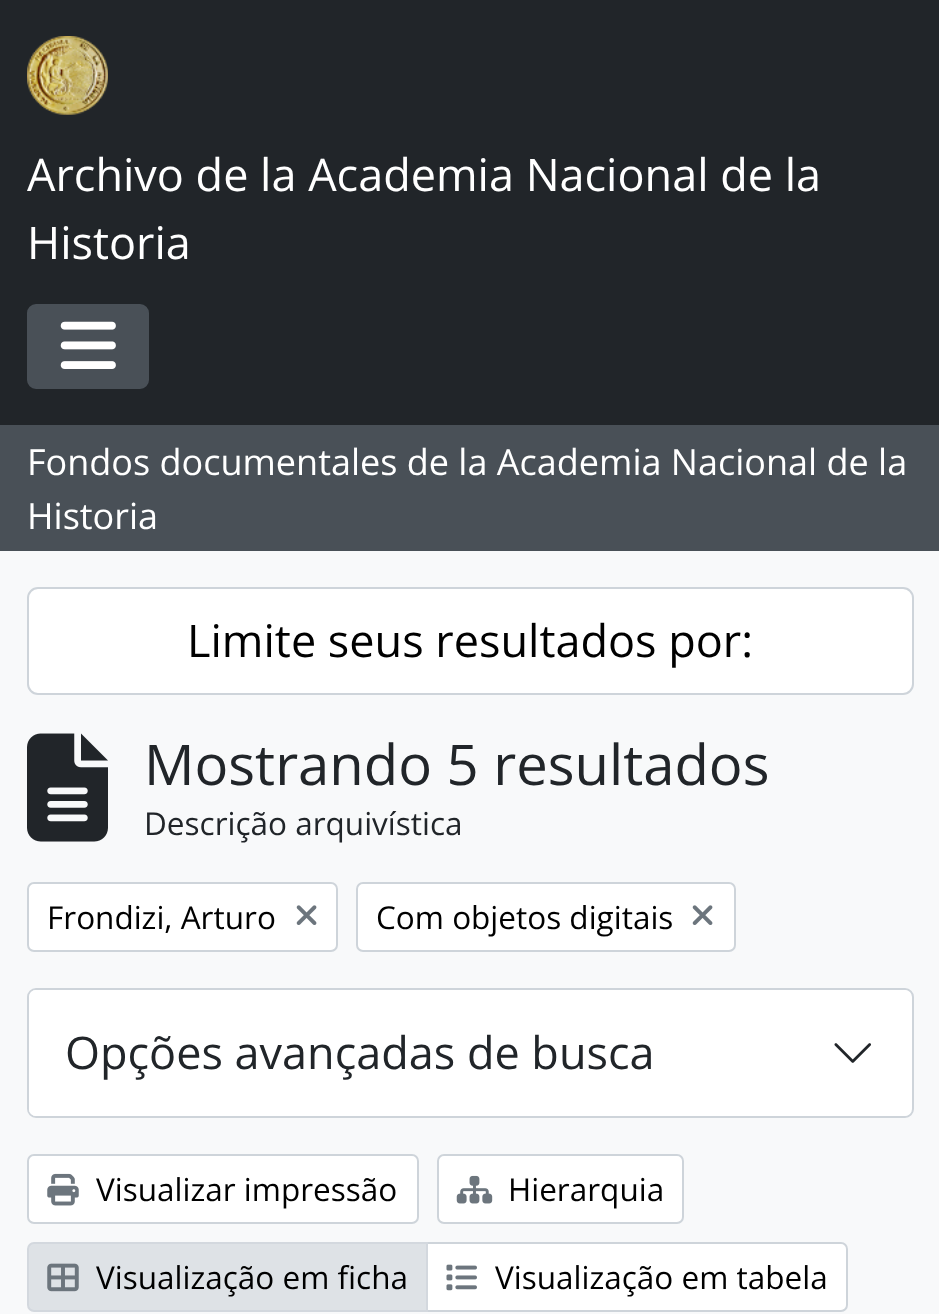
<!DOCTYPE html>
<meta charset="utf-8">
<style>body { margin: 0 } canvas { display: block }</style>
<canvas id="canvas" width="939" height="1314"></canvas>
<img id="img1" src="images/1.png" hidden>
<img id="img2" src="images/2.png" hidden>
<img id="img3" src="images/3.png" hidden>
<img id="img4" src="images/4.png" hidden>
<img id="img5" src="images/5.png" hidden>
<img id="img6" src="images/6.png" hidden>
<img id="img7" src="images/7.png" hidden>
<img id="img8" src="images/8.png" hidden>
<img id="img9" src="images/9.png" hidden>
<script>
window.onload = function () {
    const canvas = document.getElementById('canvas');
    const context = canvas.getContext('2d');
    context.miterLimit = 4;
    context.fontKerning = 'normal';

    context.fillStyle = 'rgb(248, 249, 250)';
    context.fillRect(0, 0, 939, 1314);
    context.fillStyle = 'rgb(33, 37, 41)';
    context.fillRect(0, 0, 939, 425);
    context.drawImage(document.getElementById('img1'), 27, 36, 81, 79);
    context.fillStyle = 'rgb(73, 80, 87)';
    context.beginPath();
    context.roundRect(28, 305, 120, 83, 8);
    context.fill();
    context.strokeStyle = 'rgb(73, 80, 87)';
    context.lineWidth = 2;
    context.stroke();
    context.drawImage(document.getElementById('img2'), 60, 321, 56, 48);
    context.fillRect(0, 425, 939, 126);
    context.fillStyle = 'rgb(255, 255, 255)';
    context.beginPath();
    context.roundRect(28, 588, 885, 106, 10);
    context.fill();
    context.strokeStyle = 'rgb(206, 212, 218)';
    context.stroke();
    context.drawImage(document.getElementById('img3'), 27, 733, 81, 109);
    context.beginPath();
    context.roundRect(28, 883, 309, 68, 6);
    context.fill();
    context.stroke();
    context.drawImage(document.getElementById('img4'), 296, 905, 21, 20);
    context.beginPath();
    context.roundRect(357, 883, 378, 68, 6);
    context.fill();
    context.stroke();
    context.drawImage(document.getElementById('img4'), 692, 905, 21, 20);
    context.beginPath();
    context.roundRect(28, 989, 885, 128, 8);
    context.fill();
    context.stroke();
    context.beginPath();
    context.roundRect(29, 990, 882, 126, 7);
    context.fill();
    context.drawImage(document.getElementById('img5'), 834, 1043, 37, 20);
    context.beginPath();
    context.roundRect(28, 1155, 390, 68, 6);
    context.fill();
    context.stroke();
    context.drawImage(document.getElementById('img6'), 47, 1173, 32, 33);
    context.beginPath();
    context.roundRect(438, 1155, 245, 68, 6);
    context.fill();
    context.stroke();
    context.drawImage(document.getElementById('img7'), 456, 1175, 37, 29);
    context.beginPath();
    context.roundRect(426, 1243, 421, 68, [0, 6, 6, 0]);
    context.fill();
    context.stroke();
    context.fillStyle = 'rgb(222, 226, 230)';
    context.beginPath();
    context.roundRect(28, 1243, 399, 68, [6, 0, 0, 6]);
    context.fill();
    context.strokeStyle = 'rgb(211, 216, 222)';
    context.stroke();
    context.drawImage(document.getElementById('img8'), 47, 1263, 32, 29);
    context.drawImage(document.getElementById('img9'), 446, 1264, 31, 27);
    context.font = '45px Open Sans';
    context.fillStyle = 'rgb(255, 255, 255)';
    context.fillText('Archivo de la Academia Nacional de la', 27, 191);
    context.fillText('Historia', 27, 259);
    context.font = '36px Open Sans';
    context.fillText('Fondos documentales de la Academia Nacional de la', 27, 475);
    context.fillText('Historia', 27, 529);
    context.font = '45px Open Sans';
    context.fillStyle = 'rgb(0, 0, 0)';
    context.fillText('Limite seus resultados por:', 187, 657);
    context.font = '56.2px Open Sans';
    context.fillStyle = 'rgb(33, 37, 41)';
    context.fillText('Mostrando 5 resultados', 144, 785);
    context.font = '31.5px Open Sans';
    context.fillText('Descrição arquivística', 144, 835);
    context.fillStyle = 'rgb(0, 0, 0)';
    context.fillText('Frondizi, Arturo', 47, 929);
    context.fillText('Com objetos digitais', 376, 929);
    context.font = '45px Open Sans';
    context.fillStyle = 'rgb(33, 37, 41)';
    context.fillText('Opções avançadas de busca', 65, 1069);
    context.font = '31.5px Open Sans';
    context.fillStyle = 'rgb(0, 0, 0)';
    context.fillText('Visualizar impressão', 96, 1201);
    context.fillText('Hierarquia', 508, 1201);
    context.fillText('Visualização em ficha', 96, 1289);
    context.fillText('Visualização em tabela', 495, 1289);
};
</script>
